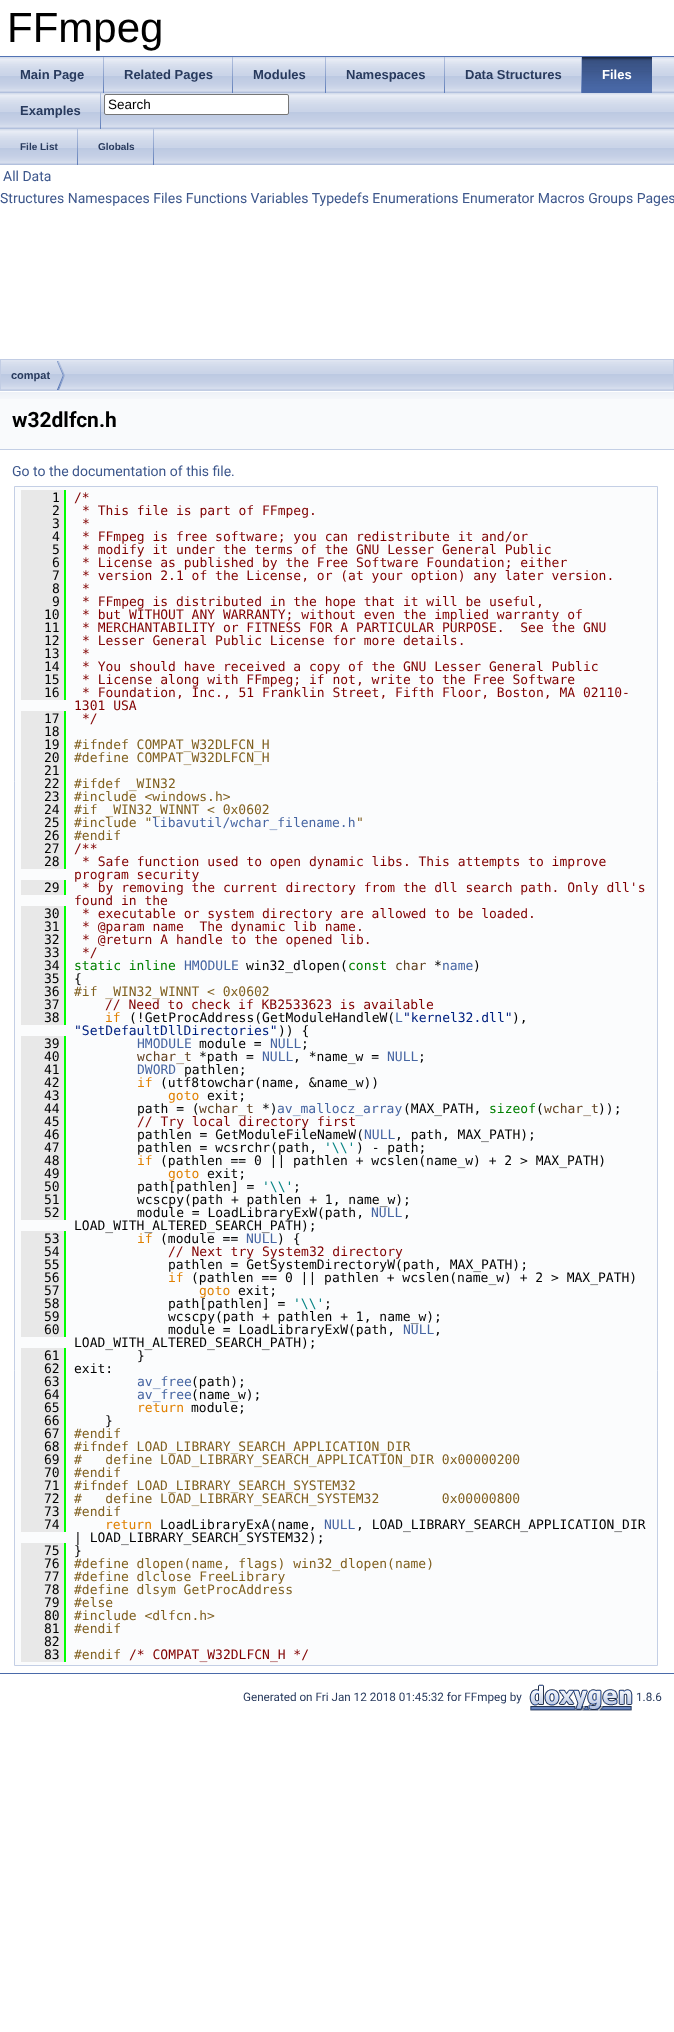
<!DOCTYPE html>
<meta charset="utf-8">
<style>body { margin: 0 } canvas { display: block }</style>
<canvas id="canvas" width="674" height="2032"></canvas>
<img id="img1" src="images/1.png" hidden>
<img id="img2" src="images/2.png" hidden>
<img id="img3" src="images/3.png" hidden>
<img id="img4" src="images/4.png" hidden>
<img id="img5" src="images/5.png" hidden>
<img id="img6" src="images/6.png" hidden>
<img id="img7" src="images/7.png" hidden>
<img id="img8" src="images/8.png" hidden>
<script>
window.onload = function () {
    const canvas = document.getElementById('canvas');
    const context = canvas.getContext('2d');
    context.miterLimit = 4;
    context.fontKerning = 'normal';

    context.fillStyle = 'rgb(255, 255, 255)';
    context.fillRect(0, 0, 674, 2032);
    context.fillStyle = 'rgb(83, 115, 180)';
    context.fillRect(0, 56, 674, 1);
    context.drawImage(document.getElementById('img1'), 0, 57, 674, 72);
    context.drawImage(document.getElementById('img2'), 103, 57, 1, 36);
    context.drawImage(document.getElementById('img2'), 232, 57, 1, 36);
    context.drawImage(document.getElementById('img2'), 325, 57, 1, 36);
    context.drawImage(document.getElementById('img2'), 444, 57, 1, 36);
    context.drawImage(document.getElementById('img2'), 581, 57, 1, 36);
    context.drawImage(document.getElementById('img3'), 582, 57, 70, 36);
    context.drawImage(document.getElementById('img2'), 100, 93, 1, 36);
    context.fillStyle = 'rgb(255, 255, 255)';
    context.beginPath();
    context.roundRect(104.5, 94.5, 184, 20, 1.5);
    context.fill();
    context.strokeStyle = 'rgb(118, 118, 118)';
    context.stroke();
    context.drawImage(document.getElementById('img4'), 0, 129, 674, 36);
    context.drawImage(document.getElementById('img2'), 77, 129, 1, 36);
    context.drawImage(document.getElementById('img2'), 153, 129, 1, 36);
    context.drawImage(document.getElementById('img5'), 1, 360, 672, 30);
    context.strokeStyle = 'rgb(194, 205, 228)';
    context.strokeRect(0.5, 359.5, 673, 31);
    context.drawImage(document.getElementById('img6'), 57, 361, 8, 29);
    context.fillStyle = 'rgb(249, 250, 252)';
    context.fillRect(0, 399, 674, 50);
    context.drawImage(document.getElementById('img7'), 0, 391, 674, 8);
    context.fillStyle = 'rgb(196, 207, 229)';
    context.fillRect(0, 449, 674, 1);
    context.fillStyle = 'rgb(251, 252, 253)';
    context.beginPath();
    context.rect(14.5, 486.5, 643, 1179);
    context.fill();
    context.strokeStyle = 'rgb(196, 207, 229)';
    context.stroke();
    context.fillStyle = 'rgb(232, 232, 232)';
    context.fillRect(21, 490, 43, 210);
    context.fillStyle = 'rgb(0, 255, 0)';
    context.fillRect(64, 490, 2, 210);
    context.fillStyle = 'rgb(232, 232, 232)';
    context.fillRect(21, 711, 43, 158);
    context.fillStyle = 'rgb(0, 255, 0)';
    context.fillRect(64, 711, 2, 158);
    context.fillStyle = 'rgb(232, 232, 232)';
    context.fillRect(21, 880, 43, 15);
    context.fillStyle = 'rgb(0, 255, 0)';
    context.fillRect(64, 880, 2, 15);
    context.fillStyle = 'rgb(232, 232, 232)';
    context.fillRect(21, 906, 43, 119);
    context.fillStyle = 'rgb(0, 255, 0)';
    context.fillRect(64, 906, 2, 119);
    context.fillStyle = 'rgb(232, 232, 232)';
    context.fillRect(21, 1036, 43, 184);
    context.fillStyle = 'rgb(0, 255, 0)';
    context.fillRect(64, 1036, 2, 184);
    context.fillStyle = 'rgb(232, 232, 232)';
    context.fillRect(21, 1231, 43, 106);
    context.fillStyle = 'rgb(0, 255, 0)';
    context.fillRect(64, 1231, 2, 106);
    context.fillStyle = 'rgb(232, 232, 232)';
    context.fillRect(21, 1348, 43, 184);
    context.fillStyle = 'rgb(0, 255, 0)';
    context.fillRect(64, 1348, 2, 184);
    context.fillStyle = 'rgb(232, 232, 232)';
    context.fillRect(21, 1543, 43, 119);
    context.fillStyle = 'rgb(0, 255, 0)';
    context.fillRect(64, 1543, 2, 119);
    context.fillStyle = 'rgb(74, 106, 170)';
    context.fillRect(0, 1673, 674, 1);
    context.drawImage(document.getElementById('img8'), 529, 1684, 104, 27);
    context.font = '42px Liberation Sans';
    context.fillStyle = 'rgb(0, 0, 0)';
    context.fillText('FFmpeg', 7, 42);
    context.font = 'bold 13px Liberation Sans';
    context.fillStyle = 'rgb(40, 58, 93)';
    context.fillText('Main Page', 20, 79);
    context.fillText('Related Pages', 124, 79);
    context.fillText('Modules', 253, 79);
    context.fillText('Namespaces', 346, 79);
    context.fillText('Data Structures', 465, 79);
    context.fillStyle = 'rgb(255, 255, 255)';
    context.fillText('Files', 602, 79);
    context.fillStyle = 'rgb(40, 58, 93)';
    context.fillText('Examples', 20, 115);
    context.font = '13.5px Liberation Sans';
    context.fillStyle = 'rgb(0, 0, 0)';
    context.fillText('Search', 108, 109);
    context.font = 'bold 10px Liberation Sans';
    context.fillStyle = 'rgb(40, 58, 93)';
    context.fillText('File List', 20, 150);
    context.fillText('Globals', 98, 150);
    context.font = '14px Roboto';
    context.fillStyle = 'rgb(61, 87, 140)';
    context.fillText('All Data', 3, 181);
    context.fillText('Structures Namespaces Files Functions Variables Typedefs Enumerations Enumerator Macros Groups Pages', 0, 203);
    context.font = 'bold 11px Liberation Sans';
    context.fillStyle = 'rgb(40, 58, 93)';
    context.fillText('compat', 11, 379);
    context.font = 'bold 21px Roboto';
    context.fillStyle = 'rgb(0, 0, 0)';
    context.fillText('w32dlfcn.h', 12, 427);
    context.font = '14px Roboto';
    context.fillStyle = 'rgb(61, 87, 140)';
    context.fillText('Go to the documentation of this file.', 12, 476);
    context.font = '13px DejaVu Sans Mono';
    context.fillStyle = 'rgb(0, 0, 0)';
    context.fillText('1', 52, 502);
    context.fillStyle = 'rgb(128, 0, 0)';
    context.fillText('/*', 74, 502);
    context.fillStyle = 'rgb(0, 0, 0)';
    context.fillText('2', 52, 515);
    context.fillStyle = 'rgb(128, 0, 0)';
    context.fillText('* This file is part of FFmpeg.', 82, 515);
    context.fillStyle = 'rgb(0, 0, 0)';
    context.fillText('3', 52, 528);
    context.fillStyle = 'rgb(128, 0, 0)';
    context.fillText('*', 82, 528);
    context.fillStyle = 'rgb(0, 0, 0)';
    context.fillText('4', 52, 541);
    context.fillStyle = 'rgb(128, 0, 0)';
    context.fillText('* FFmpeg is free software; you can redistribute it and/or', 82, 541);
    context.fillStyle = 'rgb(0, 0, 0)';
    context.fillText('5', 52, 554);
    context.fillStyle = 'rgb(128, 0, 0)';
    context.fillText('* modify it under the terms of the GNU Lesser General Public', 82, 554);
    context.fillStyle = 'rgb(0, 0, 0)';
    context.fillText('6', 52, 567);
    context.fillStyle = 'rgb(128, 0, 0)';
    context.fillText('* License as published by the Free Software Foundation; either', 82, 567);
    context.fillStyle = 'rgb(0, 0, 0)';
    context.fillText('7', 52, 580);
    context.fillStyle = 'rgb(128, 0, 0)';
    context.fillText('* version 2.1 of the License, or (at your option) any later version.', 82, 580);
    context.fillStyle = 'rgb(0, 0, 0)';
    context.fillText('8', 52, 593);
    context.fillStyle = 'rgb(128, 0, 0)';
    context.fillText('*', 82, 593);
    context.fillStyle = 'rgb(0, 0, 0)';
    context.fillText('9', 52, 606);
    context.fillStyle = 'rgb(128, 0, 0)';
    context.fillText('* FFmpeg is distributed in the hope that it will be useful,', 82, 606);
    context.fillStyle = 'rgb(0, 0, 0)';
    context.fillText('10', 44, 619);
    context.fillStyle = 'rgb(128, 0, 0)';
    context.fillText('* but WITHOUT ANY WARRANTY; without even the implied warranty of', 82, 619);
    context.fillStyle = 'rgb(0, 0, 0)';
    context.fillText('11', 44, 632);
    context.fillStyle = 'rgb(128, 0, 0)';
    context.fillText('* MERCHANTABILITY or FITNESS FOR A PARTICULAR PURPOSE.  See the GNU', 82, 632);
    context.fillStyle = 'rgb(0, 0, 0)';
    context.fillText('12', 44, 645);
    context.fillStyle = 'rgb(128, 0, 0)';
    context.fillText('* Lesser General Public License for more details.', 82, 645);
    context.fillStyle = 'rgb(0, 0, 0)';
    context.fillText('13', 44, 658);
    context.fillStyle = 'rgb(128, 0, 0)';
    context.fillText('*', 82, 658);
    context.fillStyle = 'rgb(0, 0, 0)';
    context.fillText('14', 44, 671);
    context.fillStyle = 'rgb(128, 0, 0)';
    context.fillText('* You should have received a copy of the GNU Lesser General Public', 82, 671);
    context.fillStyle = 'rgb(0, 0, 0)';
    context.fillText('15', 44, 684);
    context.fillStyle = 'rgb(128, 0, 0)';
    context.fillText('* License along with FFmpeg; if not, write to the Free Software', 82, 684);
    context.fillStyle = 'rgb(0, 0, 0)';
    context.fillText('16', 44, 697);
    context.fillStyle = 'rgb(128, 0, 0)';
    context.fillText('* Foundation, Inc., 51 Franklin Street, Fifth Floor, Boston, MA 02110-', 82, 697);
    context.fillText('1301 USA', 74, 710);
    context.fillStyle = 'rgb(0, 0, 0)';
    context.fillText('17', 44, 723);
    context.fillStyle = 'rgb(128, 0, 0)';
    context.fillText('*/', 82, 723);
    context.fillStyle = 'rgb(0, 0, 0)';
    context.fillText('18', 44, 736);
    context.fillText('19', 44, 749);
    context.fillStyle = 'rgb(128, 96, 32)';
    context.fillText('#ifndef COMPAT_W32DLFCN_H', 74, 749);
    context.fillStyle = 'rgb(0, 0, 0)';
    context.fillText('20', 44, 762);
    context.fillStyle = 'rgb(128, 96, 32)';
    context.fillText('#define COMPAT_W32DLFCN_H', 74, 762);
    context.fillStyle = 'rgb(0, 0, 0)';
    context.fillText('21', 44, 775);
    context.fillText('22', 44, 788);
    context.fillStyle = 'rgb(128, 96, 32)';
    context.fillText('#ifdef _WIN32', 74, 788);
    context.fillStyle = 'rgb(0, 0, 0)';
    context.fillText('23', 44, 801);
    context.fillStyle = 'rgb(128, 96, 32)';
    context.fillText('#include <windows.h>', 74, 801);
    context.fillStyle = 'rgb(0, 0, 0)';
    context.fillText('24', 44, 814);
    context.fillStyle = 'rgb(128, 96, 32)';
    context.fillText('#if _WIN32_WINNT < 0x0602', 74, 814);
    context.fillStyle = 'rgb(0, 0, 0)';
    context.fillText('25', 44, 827);
    context.fillStyle = 'rgb(128, 96, 32)';
    context.fillText('#include "', 74, 827);
    context.fillStyle = 'rgb(70, 101, 162)';
    context.fillText('libavutil/wchar_filename.h', 152, 827);
    context.fillStyle = 'rgb(128, 96, 32)';
    context.fillText('"', 356, 827);
    context.fillStyle = 'rgb(0, 0, 0)';
    context.fillText('26', 44, 840);
    context.fillStyle = 'rgb(128, 96, 32)';
    context.fillText('#endif', 74, 840);
    context.fillStyle = 'rgb(0, 0, 0)';
    context.fillText('27', 44, 853);
    context.fillStyle = 'rgb(128, 0, 0)';
    context.fillText('/**', 74, 853);
    context.fillStyle = 'rgb(0, 0, 0)';
    context.fillText('28', 44, 866);
    context.fillStyle = 'rgb(128, 0, 0)';
    context.fillText('* Safe function used to open dynamic libs. This attempts to improve', 82, 866);
    context.fillText('program security', 74, 879);
    context.fillStyle = 'rgb(0, 0, 0)';
    context.fillText('29', 44, 892);
    context.fillStyle = 'rgb(128, 0, 0)';
    context.fillText('* by removing the current directory from the dll search path. Only dll\'s', 82, 892);
    context.fillText('found in the', 74, 905);
    context.fillStyle = 'rgb(0, 0, 0)';
    context.fillText('30', 44, 918);
    context.fillStyle = 'rgb(128, 0, 0)';
    context.fillText('* executable or system directory are allowed to be loaded.', 82, 918);
    context.fillStyle = 'rgb(0, 0, 0)';
    context.fillText('31', 44, 931);
    context.fillStyle = 'rgb(128, 0, 0)';
    context.fillText('* @param name  The dynamic lib name.', 82, 931);
    context.fillStyle = 'rgb(0, 0, 0)';
    context.fillText('32', 44, 944);
    context.fillStyle = 'rgb(128, 0, 0)';
    context.fillText('* @return A handle to the opened lib.', 82, 944);
    context.fillStyle = 'rgb(0, 0, 0)';
    context.fillText('33', 44, 957);
    context.fillStyle = 'rgb(128, 0, 0)';
    context.fillText('*/', 82, 957);
    context.fillStyle = 'rgb(0, 0, 0)';
    context.fillText('34', 44, 970);
    context.fillStyle = 'rgb(0, 128, 0)';
    context.fillText('static inline', 74, 970);
    context.fillStyle = 'rgb(70, 101, 162)';
    context.fillText('HMODULE', 184, 970);
    context.fillStyle = 'rgb(0, 0, 0)';
    context.fillText('win32_dlopen(', 246, 970);
    context.fillStyle = 'rgb(0, 128, 0)';
    context.fillText('const', 348, 970);
    context.fillStyle = 'rgb(96, 64, 32)';
    context.fillText('char', 395, 970);
    context.fillStyle = 'rgb(0, 0, 0)';
    context.fillText('*', 434, 970);
    context.fillStyle = 'rgb(70, 101, 162)';
    context.fillText('name', 442, 970);
    context.fillStyle = 'rgb(0, 0, 0)';
    context.fillText(')', 473, 970);
    context.fillText('35', 44, 983);
    context.fillText('{', 74, 983);
    context.fillText('36', 44, 996);
    context.fillStyle = 'rgb(128, 96, 32)';
    context.fillText('#if _WIN32_WINNT < 0x0602', 74, 996);
    context.fillStyle = 'rgb(0, 0, 0)';
    context.fillText('37', 44, 1009);
    context.fillStyle = 'rgb(128, 0, 0)';
    context.fillText('// Need to check if KB2533623 is available', 105, 1009);
    context.fillStyle = 'rgb(0, 0, 0)';
    context.fillText('38', 44, 1022);
    context.fillStyle = 'rgb(224, 128, 0)';
    context.fillText('if', 105, 1022);
    context.fillStyle = 'rgb(0, 0, 0)';
    context.fillText('(!GetProcAddress(GetModuleHandleW(', 129, 1022);
    context.fillStyle = 'rgb(70, 101, 162)';
    context.fillText('L', 395, 1022);
    context.fillStyle = 'rgb(0, 32, 128)';
    context.fillText('"kernel32.dll"', 403, 1022);
    context.fillStyle = 'rgb(0, 0, 0)';
    context.fillText('),', 512, 1022);
    context.fillStyle = 'rgb(0, 32, 128)';
    context.fillText('"SetDefaultDllDirectories"', 74, 1035);
    context.fillStyle = 'rgb(0, 0, 0)';
    context.fillText(')) {', 278, 1035);
    context.fillText('39', 44, 1048);
    context.fillStyle = 'rgb(70, 101, 162)';
    context.fillText('HMODULE', 137, 1048);
    context.fillStyle = 'rgb(0, 0, 0)';
    context.fillText('module =', 199, 1048);
    context.fillStyle = 'rgb(70, 101, 162)';
    context.fillText('NULL', 270, 1048);
    context.fillStyle = 'rgb(0, 0, 0)';
    context.fillText(';', 301, 1048);
    context.fillText('40', 44, 1061);
    context.fillStyle = 'rgb(96, 64, 32)';
    context.fillText('wchar_t', 137, 1061);
    context.fillStyle = 'rgb(0, 0, 0)';
    context.fillText('*path =', 199, 1061);
    context.fillStyle = 'rgb(70, 101, 162)';
    context.fillText('NULL', 262, 1061);
    context.fillStyle = 'rgb(0, 0, 0)';
    context.fillText(', *name_w =', 293, 1061);
    context.fillStyle = 'rgb(70, 101, 162)';
    context.fillText('NULL', 387, 1061);
    context.fillStyle = 'rgb(0, 0, 0)';
    context.fillText(';', 418, 1061);
    context.fillText('41', 44, 1074);
    context.fillStyle = 'rgb(70, 101, 162)';
    context.fillText('DWORD', 137, 1074);
    context.fillStyle = 'rgb(0, 0, 0)';
    context.fillText('pathlen;', 184, 1074);
    context.fillText('42', 44, 1087);
    context.fillStyle = 'rgb(224, 128, 0)';
    context.fillText('if', 137, 1087);
    context.fillStyle = 'rgb(0, 0, 0)';
    context.fillText('(utf8towchar(name, &name_w))', 160, 1087);
    context.fillText('43', 44, 1100);
    context.fillStyle = 'rgb(224, 128, 0)';
    context.fillText('goto', 168, 1100);
    context.fillStyle = 'rgb(0, 0, 0)';
    context.fillText('exit;', 207, 1100);
    context.fillText('44', 44, 1113);
    context.fillText('path = (', 137, 1113);
    context.fillStyle = 'rgb(96, 64, 32)';
    context.fillText('wchar_t', 199, 1113);
    context.fillStyle = 'rgb(0, 0, 0)';
    context.fillText('*)', 262, 1113);
    context.fillStyle = 'rgb(70, 101, 162)';
    context.fillText('av_mallocz_array', 277, 1113);
    context.fillStyle = 'rgb(0, 0, 0)';
    context.fillText('(MAX_PATH,', 403, 1113);
    context.fillStyle = 'rgb(0, 128, 0)';
    context.fillText('sizeof', 489, 1113);
    context.fillStyle = 'rgb(0, 0, 0)';
    context.fillText('(', 536, 1113);
    context.fillStyle = 'rgb(96, 64, 32)';
    context.fillText('wchar_t', 544, 1113);
    context.fillStyle = 'rgb(0, 0, 0)';
    context.fillText('));', 598, 1113);
    context.fillText('45', 44, 1126);
    context.fillStyle = 'rgb(128, 0, 0)';
    context.fillText('// Try local directory first', 137, 1126);
    context.fillStyle = 'rgb(0, 0, 0)';
    context.fillText('46', 44, 1139);
    context.fillText('pathlen = GetModuleFileNameW(', 137, 1139);
    context.fillStyle = 'rgb(70, 101, 162)';
    context.fillText('NULL', 364, 1139);
    context.fillStyle = 'rgb(0, 0, 0)';
    context.fillText(', path, MAX_PATH);', 395, 1139);
    context.fillText('47', 44, 1152);
    context.fillText('pathlen = wcsrchr(path,', 137, 1152);
    context.fillStyle = 'rgb(0, 128, 128)';
    context.fillText('\'\\\\\'', 324, 1152);
    context.fillStyle = 'rgb(0, 0, 0)';
    context.fillText(') - path;', 356, 1152);
    context.fillText('48', 44, 1165);
    context.fillStyle = 'rgb(224, 128, 0)';
    context.fillText('if', 137, 1165);
    context.fillStyle = 'rgb(0, 0, 0)';
    context.fillText('(pathlen == 0 || pathlen + wcslen(name_w) + 2 > MAX_PATH)', 160, 1165);
    context.fillText('49', 44, 1178);
    context.fillStyle = 'rgb(224, 128, 0)';
    context.fillText('goto', 168, 1178);
    context.fillStyle = 'rgb(0, 0, 0)';
    context.fillText('exit;', 207, 1178);
    context.fillText('50', 44, 1191);
    context.fillText('path[pathlen] =', 137, 1191);
    context.fillStyle = 'rgb(0, 128, 128)';
    context.fillText('\'\\\\\'', 262, 1191);
    context.fillStyle = 'rgb(0, 0, 0)';
    context.fillText(';', 293, 1191);
    context.fillText('51', 44, 1204);
    context.fillText('wcscpy(path + pathlen + 1, name_w);', 137, 1204);
    context.fillText('52', 44, 1217);
    context.fillText('module = LoadLibraryExW(path,', 137, 1217);
    context.fillStyle = 'rgb(70, 101, 162)';
    context.fillText('NULL', 371, 1217);
    context.fillStyle = 'rgb(0, 0, 0)';
    context.fillText(',', 403, 1217);
    context.fillText('LOAD_WITH_ALTERED_SEARCH_PATH);', 74, 1230);
    context.fillText('53', 44, 1243);
    context.fillStyle = 'rgb(224, 128, 0)';
    context.fillText('if', 137, 1243);
    context.fillStyle = 'rgb(0, 0, 0)';
    context.fillText('(module ==', 160, 1243);
    context.fillStyle = 'rgb(70, 101, 162)';
    context.fillText('NULL', 246, 1243);
    context.fillStyle = 'rgb(0, 0, 0)';
    context.fillText(') {', 277, 1243);
    context.fillText('54', 44, 1256);
    context.fillStyle = 'rgb(128, 0, 0)';
    context.fillText('// Next try System32 directory', 168, 1256);
    context.fillStyle = 'rgb(0, 0, 0)';
    context.fillText('55', 44, 1269);
    context.fillText('pathlen = GetSystemDirectoryW(path, MAX_PATH);', 168, 1269);
    context.fillText('56', 44, 1282);
    context.fillStyle = 'rgb(224, 128, 0)';
    context.fillText('if', 168, 1282);
    context.fillStyle = 'rgb(0, 0, 0)';
    context.fillText('(pathlen == 0 || pathlen + wcslen(name_w) + 2 > MAX_PATH)', 191, 1282);
    context.fillText('57', 44, 1295);
    context.fillStyle = 'rgb(224, 128, 0)';
    context.fillText('goto', 199, 1295);
    context.fillStyle = 'rgb(0, 0, 0)';
    context.fillText('exit;', 238, 1295);
    context.fillText('58', 44, 1308);
    context.fillText('path[pathlen] =', 168, 1308);
    context.fillStyle = 'rgb(0, 128, 128)';
    context.fillText('\'\\\\\'', 293, 1308);
    context.fillStyle = 'rgb(0, 0, 0)';
    context.fillText(';', 324, 1308);
    context.fillText('59', 44, 1321);
    context.fillText('wcscpy(path + pathlen + 1, name_w);', 168, 1321);
    context.fillText('60', 44, 1334);
    context.fillText('module = LoadLibraryExW(path,', 168, 1334);
    context.fillStyle = 'rgb(70, 101, 162)';
    context.fillText('NULL', 403, 1334);
    context.fillStyle = 'rgb(0, 0, 0)';
    context.fillText(',', 434, 1334);
    context.fillText('LOAD_WITH_ALTERED_SEARCH_PATH);', 74, 1347);
    context.fillText('61', 44, 1360);
    context.fillText('}', 137, 1360);
    context.fillText('62', 44, 1373);
    context.fillText('exit:', 74, 1373);
    context.fillText('63', 44, 1386);
    context.fillStyle = 'rgb(70, 101, 162)';
    context.fillText('av_free', 137, 1386);
    context.fillStyle = 'rgb(0, 0, 0)';
    context.fillText('(path);', 191, 1386);
    context.fillText('64', 44, 1399);
    context.fillStyle = 'rgb(70, 101, 162)';
    context.fillText('av_free', 137, 1399);
    context.fillStyle = 'rgb(0, 0, 0)';
    context.fillText('(name_w);', 191, 1399);
    context.fillText('65', 44, 1412);
    context.fillStyle = 'rgb(224, 128, 0)';
    context.fillText('return', 137, 1412);
    context.fillStyle = 'rgb(0, 0, 0)';
    context.fillText('module;', 191, 1412);
    context.fillText('66', 44, 1425);
    context.fillText('}', 105, 1425);
    context.fillText('67', 44, 1438);
    context.fillStyle = 'rgb(128, 96, 32)';
    context.fillText('#endif', 74, 1438);
    context.fillStyle = 'rgb(0, 0, 0)';
    context.fillText('68', 44, 1451);
    context.fillStyle = 'rgb(128, 96, 32)';
    context.fillText('#ifndef LOAD_LIBRARY_SEARCH_APPLICATION_DIR', 74, 1451);
    context.fillStyle = 'rgb(0, 0, 0)';
    context.fillText('69', 44, 1464);
    context.fillStyle = 'rgb(128, 96, 32)';
    context.fillText('#   define LOAD_LIBRARY_SEARCH_APPLICATION_DIR 0x00000200', 74, 1464);
    context.fillStyle = 'rgb(0, 0, 0)';
    context.fillText('70', 44, 1477);
    context.fillStyle = 'rgb(128, 96, 32)';
    context.fillText('#endif', 74, 1477);
    context.fillStyle = 'rgb(0, 0, 0)';
    context.fillText('71', 44, 1490);
    context.fillStyle = 'rgb(128, 96, 32)';
    context.fillText('#ifndef LOAD_LIBRARY_SEARCH_SYSTEM32', 74, 1490);
    context.fillStyle = 'rgb(0, 0, 0)';
    context.fillText('72', 44, 1503);
    context.fillStyle = 'rgb(128, 96, 32)';
    context.fillText('#   define LOAD_LIBRARY_SEARCH_SYSTEM32        0x00000800', 74, 1503);
    context.fillStyle = 'rgb(0, 0, 0)';
    context.fillText('73', 44, 1516);
    context.fillStyle = 'rgb(128, 96, 32)';
    context.fillText('#endif', 74, 1516);
    context.fillStyle = 'rgb(0, 0, 0)';
    context.fillText('74', 44, 1529);
    context.fillStyle = 'rgb(224, 128, 0)';
    context.fillText('return', 105, 1529);
    context.fillStyle = 'rgb(0, 0, 0)';
    context.fillText('LoadLibraryExA(name,', 160, 1529);
    context.fillStyle = 'rgb(70, 101, 162)';
    context.fillText('NULL', 324, 1529);
    context.fillStyle = 'rgb(0, 0, 0)';
    context.fillText(', LOAD_LIBRARY_SEARCH_APPLICATION_DIR', 356, 1529);
    context.fillText('| LOAD_LIBRARY_SEARCH_SYSTEM32);', 74, 1542);
    context.fillText('75', 44, 1555);
    context.fillText('}', 74, 1555);
    context.fillText('76', 44, 1568);
    context.fillStyle = 'rgb(128, 96, 32)';
    context.fillText('#define dlopen(name, flags) win32_dlopen(name)', 74, 1568);
    context.fillStyle = 'rgb(0, 0, 0)';
    context.fillText('77', 44, 1581);
    context.fillStyle = 'rgb(128, 96, 32)';
    context.fillText('#define dlclose FreeLibrary', 74, 1581);
    context.fillStyle = 'rgb(0, 0, 0)';
    context.fillText('78', 44, 1594);
    context.fillStyle = 'rgb(128, 96, 32)';
    context.fillText('#define dlsym GetProcAddress', 74, 1594);
    context.fillStyle = 'rgb(0, 0, 0)';
    context.fillText('79', 44, 1607);
    context.fillStyle = 'rgb(128, 96, 32)';
    context.fillText('#else', 74, 1607);
    context.fillStyle = 'rgb(0, 0, 0)';
    context.fillText('80', 44, 1620);
    context.fillStyle = 'rgb(128, 96, 32)';
    context.fillText('#include <dlfcn.h>', 74, 1620);
    context.fillStyle = 'rgb(0, 0, 0)';
    context.fillText('81', 44, 1633);
    context.fillStyle = 'rgb(128, 96, 32)';
    context.fillText('#endif', 74, 1633);
    context.fillStyle = 'rgb(0, 0, 0)';
    context.fillText('82', 44, 1646);
    context.fillText('83', 44, 1659);
    context.fillStyle = 'rgb(128, 96, 32)';
    context.fillText('#endif', 74, 1659);
    context.fillStyle = 'rgb(128, 0, 0)';
    context.fillText('/* COMPAT_W32DLFCN_H */', 129, 1659);
    context.font = '11.7px Roboto';
    context.fillStyle = 'rgb(40, 58, 93)';
    context.fillText('Generated on Fri Jan 12 2018 01:45:32 for FFmpeg by', 243, 1701);
    context.fillText('1.8.6', 636, 1701);
};
</script>
